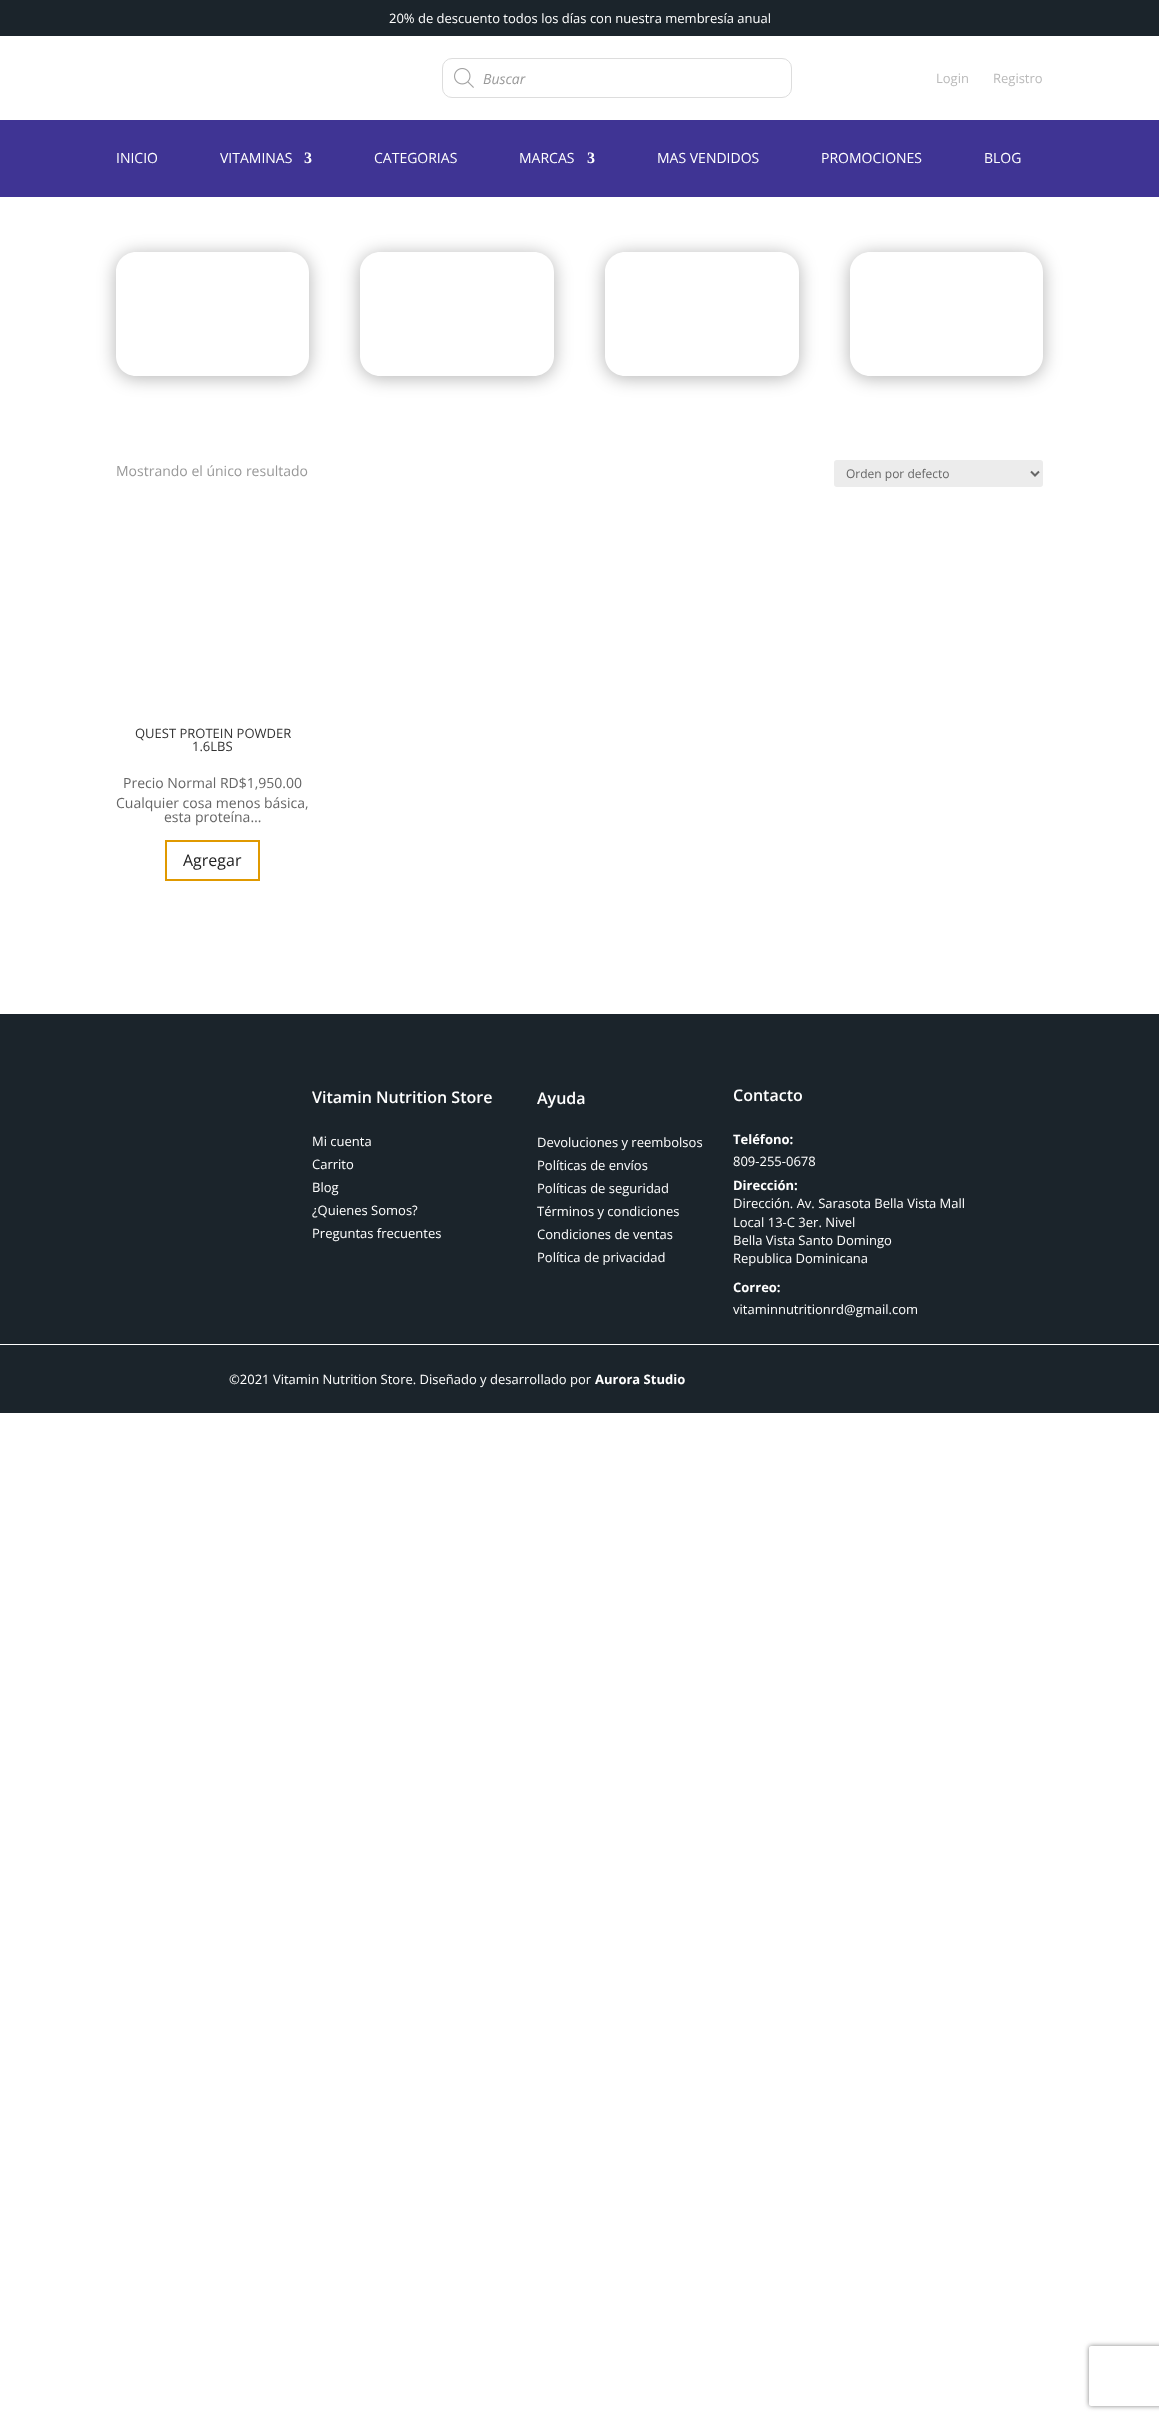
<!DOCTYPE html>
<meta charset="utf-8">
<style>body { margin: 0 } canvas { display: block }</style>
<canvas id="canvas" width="1159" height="2420"></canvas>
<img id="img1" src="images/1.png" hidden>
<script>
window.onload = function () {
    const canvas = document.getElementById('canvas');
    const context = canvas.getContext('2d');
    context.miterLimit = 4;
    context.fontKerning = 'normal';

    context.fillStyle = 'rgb(255, 255, 255)';
    context.fillRect(0, 0, 1159, 2420);
    context.fillStyle = 'rgb(27, 36, 43)';
    context.fillRect(0, 0, 1159, 36);
    context.beginPath();
    context.roundRect(442.5, 58.5, 349, 39, 9.5);
    context.strokeStyle = 'rgb(221, 221, 221)';
    context.stroke();
    context.drawImage(document.getElementById('img1'), 454, 68, 20, 20);
    context.fillStyle = 'rgb(63, 52, 148)';
    context.fillRect(0, 120, 1159, 77);
    context.save();
    context.beginPath();
    context.moveTo(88, 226);
    context.lineTo(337, 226);
    context.lineTo(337, 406);
    context.lineTo(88, 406);
    context.closePath();
    context.moveTo(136, 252);
    context.lineTo(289, 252);
    context.bezierCurveTo(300, 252, 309, 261, 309, 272);
    context.lineTo(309, 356);
    context.bezierCurveTo(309, 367, 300, 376, 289, 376);
    context.lineTo(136, 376);
    context.bezierCurveTo(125, 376, 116, 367, 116, 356);
    context.lineTo(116, 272);
    context.bezierCurveTo(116, 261, 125, 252, 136, 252);
    context.closePath();
    context.clip('evenodd');
    context.fillStyle = 'rgba(0, 0, 0, 0.3)';
    context.filter = 'blur(9px)';
    context.beginPath();
    context.roundRect(116, 254, 193, 124, 20);
    context.fill();
    context.filter = 'none';
    context.restore();
    context.save();
    context.beginPath();
    context.moveTo(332, 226);
    context.lineTo(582, 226);
    context.lineTo(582, 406);
    context.lineTo(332, 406);
    context.closePath();
    context.moveTo(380, 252);
    context.lineTo(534, 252);
    context.bezierCurveTo(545, 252, 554, 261, 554, 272);
    context.lineTo(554, 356);
    context.bezierCurveTo(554, 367, 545, 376, 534, 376);
    context.lineTo(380, 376);
    context.bezierCurveTo(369, 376, 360, 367, 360, 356);
    context.lineTo(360, 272);
    context.bezierCurveTo(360, 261, 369, 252, 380, 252);
    context.closePath();
    context.clip('evenodd');
    context.fillStyle = 'rgba(0, 0, 0, 0.3)';
    context.filter = 'blur(9px)';
    context.beginPath();
    context.roundRect(360, 254, 194, 124, 20);
    context.fill();
    context.filter = 'none';
    context.restore();
    context.save();
    context.beginPath();
    context.moveTo(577, 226);
    context.lineTo(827, 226);
    context.lineTo(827, 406);
    context.lineTo(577, 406);
    context.closePath();
    context.moveTo(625, 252);
    context.lineTo(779, 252);
    context.bezierCurveTo(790, 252, 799, 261, 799, 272);
    context.lineTo(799, 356);
    context.bezierCurveTo(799, 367, 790, 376, 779, 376);
    context.lineTo(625, 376);
    context.bezierCurveTo(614, 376, 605, 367, 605, 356);
    context.lineTo(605, 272);
    context.bezierCurveTo(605, 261, 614, 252, 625, 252);
    context.closePath();
    context.clip('evenodd');
    context.fillStyle = 'rgba(0, 0, 0, 0.3)';
    context.filter = 'blur(9px)';
    context.beginPath();
    context.roundRect(605, 254, 194, 124, 20);
    context.fill();
    context.filter = 'none';
    context.restore();
    context.save();
    context.beginPath();
    context.moveTo(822, 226);
    context.lineTo(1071, 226);
    context.lineTo(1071, 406);
    context.lineTo(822, 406);
    context.closePath();
    context.moveTo(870, 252);
    context.lineTo(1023, 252);
    context.bezierCurveTo(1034, 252, 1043, 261, 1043, 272);
    context.lineTo(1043, 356);
    context.bezierCurveTo(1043, 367, 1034, 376, 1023, 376);
    context.lineTo(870, 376);
    context.bezierCurveTo(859, 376, 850, 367, 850, 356);
    context.lineTo(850, 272);
    context.bezierCurveTo(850, 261, 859, 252, 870, 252);
    context.closePath();
    context.clip('evenodd');
    context.fillStyle = 'rgba(0, 0, 0, 0.3)';
    context.filter = 'blur(9px)';
    context.beginPath();
    context.roundRect(850, 254, 193, 124, 20);
    context.fill();
    context.filter = 'none';
    context.restore();
    context.fillStyle = 'rgb(236, 236, 236)';
    context.beginPath();
    context.roundRect(834, 460, 209, 27, 3);
    context.fill();
    context.beginPath();
    context.moveTo(1031, 471.5);
    context.lineTo(1035, 475.5);
    context.lineTo(1039, 471.5);
    context.strokeStyle = 'rgb(102, 102, 102)';
    context.lineWidth = 2;
    context.stroke();
    context.strokeStyle = 'rgb(224, 153, 0)';
    context.strokeRect(166, 841, 93, 39);
    context.fillStyle = 'rgb(27, 36, 43)';
    context.fillRect(0, 1014, 1159, 330);
    context.fillRect(0, 1345, 1159, 68);
    context.save();
    context.beginPath();
    context.moveTo(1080, 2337);
    context.lineTo(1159, 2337);
    context.lineTo(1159, 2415);
    context.lineTo(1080, 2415);
    context.closePath();
    context.moveTo(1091, 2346);
    context.lineTo(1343, 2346);
    context.bezierCurveTo(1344, 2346, 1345, 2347, 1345, 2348);
    context.lineTo(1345, 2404);
    context.bezierCurveTo(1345, 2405, 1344, 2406, 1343, 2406);
    context.lineTo(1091, 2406);
    context.bezierCurveTo(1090, 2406, 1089, 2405, 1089, 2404);
    context.lineTo(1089, 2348);
    context.bezierCurveTo(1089, 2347, 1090, 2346, 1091, 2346);
    context.closePath();
    context.clip('evenodd');
    context.fillStyle = 'rgb(128, 128, 128)';
    context.filter = 'blur(2.5px)';
    context.beginPath();
    context.roundRect(1089, 2346, 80, 60, 2);
    context.fill();
    context.filter = 'none';
    context.restore();
    context.font = '13px Open Sans';
    context.fillStyle = 'rgb(255, 255, 255)';
    context.fillText('20% de descuento todos los días con nuestra membresía anual', 389, 23);
    context.font = 'italic 14px Open Sans';
    context.fillStyle = 'rgb(153, 153, 153)';
    context.fillText('Buscar', 483, 84);
    context.font = '13px Open Sans';
    context.fillStyle = 'rgb(186, 186, 186)';
    context.fillText('Login', 936, 83);
    context.fillText('Registro', 993, 83);
    context.font = '14px Open Sans';
    context.fillStyle = 'rgb(255, 255, 255)';
    context.fillText('INICIO', 116, 163);
    context.fillText('VITAMINAS', 220, 163);
    context.font = 'bold 16px Liberation Serif';
    context.fillText('3', 304, 163);
    context.font = '14px Open Sans';
    context.fillText('CATEGORIAS', 374, 163);
    context.fillText('MARCAS', 519, 163);
    context.font = 'bold 16px Liberation Serif';
    context.fillText('3', 587, 163);
    context.font = '14px Open Sans';
    context.fillText('MAS VENDIDOS', 657, 163);
    context.fillText('PROMOCIONES', 821, 163);
    context.fillText('BLOG', 984, 163);
    context.fillStyle = 'rgb(153, 153, 153)';
    context.fillText('Mostrando el único resultado', 116, 476);
    context.font = '12px Open Sans';
    context.fillStyle = 'rgb(102, 102, 102)';
    context.fillText('Orden por defecto', 846, 478);
    context.font = '13px Open Sans';
    context.fillStyle = 'rgb(51, 51, 51)';
    context.fillText('QUEST PROTEIN POWDER', 135, 738);
    context.fillText('1.6LBS', 192, 751);
    context.font = '14px Open Sans';
    context.fillStyle = 'rgb(102, 102, 102)';
    context.fillText('Precio Normal RD$1,950.00', 123, 788);
    context.fillText('Cualquier cosa menos básica,', 116, 808);
    context.fillText('esta proteína…', 164, 822);
    context.font = '16px Open Sans';
    context.fillStyle = 'rgb(34, 34, 34)';
    context.fillText('Agregar', 183, 866);
    context.font = '600 16px Open Sans';
    context.fillStyle = 'rgb(255, 255, 255)';
    context.fillText('Vitamin Nutrition Store', 312, 1103);
    context.font = '13px Open Sans';
    context.fillText('Mi cuenta', 312, 1146);
    context.fillText('Carrito', 312, 1169);
    context.fillText('Blog', 312, 1192);
    context.fillText('¿Quienes Somos?', 312, 1215);
    context.fillText('Preguntas frecuentes', 312, 1238);
    context.font = '600 16px Open Sans';
    context.fillText('Ayuda', 537, 1104);
    context.font = '13px Open Sans';
    context.fillText('Devoluciones y reembolsos', 537, 1147);
    context.fillText('Políticas de envíos', 537, 1170);
    context.fillText('Políticas de seguridad', 537, 1193);
    context.fillText('Términos y condiciones', 537, 1216);
    context.fillText('Condiciones de ventas', 537, 1239);
    context.fillText('Política de privacidad', 537, 1262);
    context.font = '600 16px Open Sans';
    context.fillText('Contacto', 733, 1101);
    context.font = 'bold 13px Open Sans';
    context.fillText('Teléfono:', 733, 1144);
    context.font = '13px Open Sans';
    context.fillText('809-255-0678', 733, 1166);
    context.font = 'bold 13px Open Sans';
    context.fillText('Dirección:', 733, 1190);
    context.font = '13px Open Sans';
    context.fillText('Dirección. Av. Sarasota Bella Vista Mall', 733, 1208);
    context.fillText('Local 13-C 3er. Nivel', 733, 1227);
    context.fillText('Bella Vista Santo Domingo', 733, 1245);
    context.fillText('Republica Dominicana', 733, 1263);
    context.font = 'bold 13px Open Sans';
    context.fillText('Correo:', 733, 1292);
    context.font = '13px Open Sans';
    context.fillText('vitaminnutritionrd@gmail.com', 733, 1314);
    context.fillText('©2021 Vitamin Nutrition Store. Diseñado y desarrollado por', 229, 1384);
    context.font = 'bold 13px Open Sans';
    context.fillText('Aurora Studio', 595, 1384);
};
</script>
